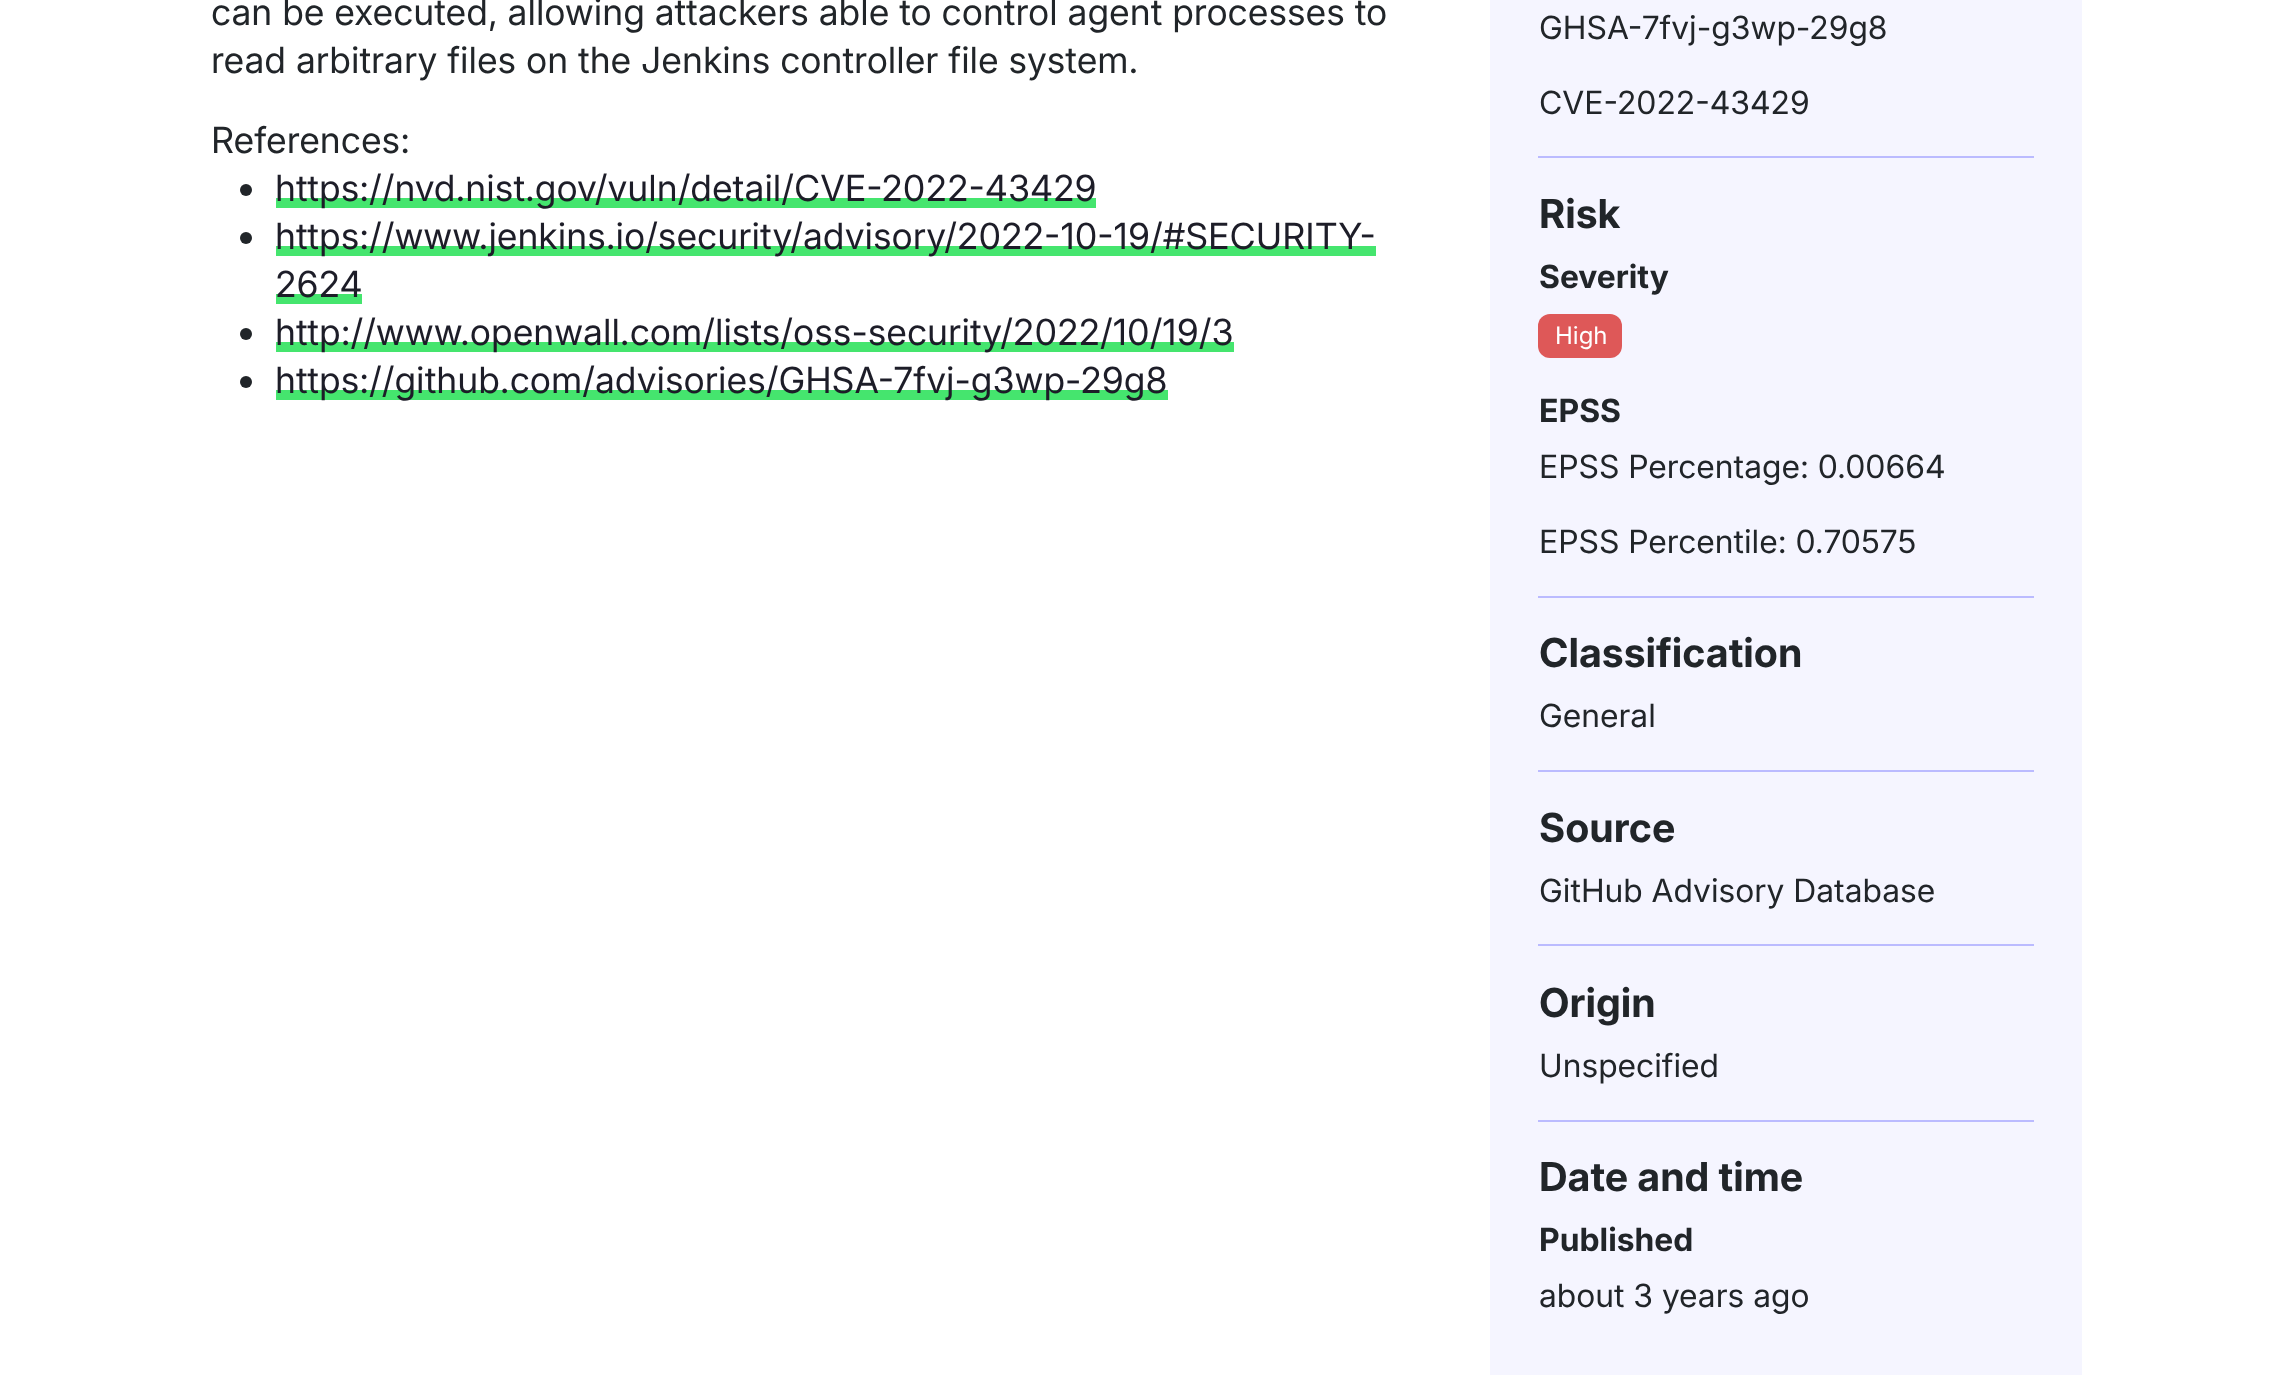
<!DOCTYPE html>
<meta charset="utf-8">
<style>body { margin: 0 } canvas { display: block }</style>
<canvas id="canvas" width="2293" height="1375"></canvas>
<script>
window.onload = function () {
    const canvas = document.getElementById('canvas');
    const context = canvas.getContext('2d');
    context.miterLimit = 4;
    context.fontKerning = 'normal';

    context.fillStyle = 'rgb(255, 255, 255)';
    context.fillRect(0, 0, 2293, 1375);
    context.fillStyle = 'rgb(33, 37, 41)';
    context.beginPath();
    context.arc(246, 190, 6, 0, 2 * Math.PI);
    context.fill();
    context.fillStyle = 'rgb(69, 229, 110)';
    context.fillRect(276, 198, 820, 10);
    context.fillStyle = 'rgb(33, 37, 41)';
    context.beginPath();
    context.arc(246, 238, 6, 0, 2 * Math.PI);
    context.fill();
    context.fillStyle = 'rgb(69, 229, 110)';
    context.fillRect(276, 246, 1100, 10);
    context.fillRect(276, 294, 86, 10);
    context.fillStyle = 'rgb(33, 37, 41)';
    context.beginPath();
    context.arc(246, 334, 6, 0, 2 * Math.PI);
    context.fill();
    context.fillStyle = 'rgb(69, 229, 110)';
    context.fillRect(276, 342, 958, 10);
    context.fillStyle = 'rgb(33, 37, 41)';
    context.beginPath();
    context.arc(246, 382, 6, 0, 2 * Math.PI);
    context.fill();
    context.fillStyle = 'rgb(69, 229, 110)';
    context.fillRect(276, 390, 892, 10);
    context.fillStyle = 'rgb(245, 245, 255)';
    context.fillRect(1490, 0, 592, 1375);
    context.fillStyle = 'rgb(187, 187, 255)';
    context.fillRect(1538, 156, 496, 2);
    context.fillStyle = 'rgb(222, 88, 88)';
    context.beginPath();
    context.roundRect(1538, 314, 84, 44, 12);
    context.fill();
    context.fillStyle = 'rgb(187, 187, 255)';
    context.fillRect(1538, 596, 496, 2);
    context.fillRect(1538, 770, 496, 2);
    context.fillRect(1538, 944, 496, 2);
    context.fillRect(1538, 1120, 496, 2);
    context.font = '36px Inter';
    context.fillStyle = 'rgb(33, 37, 41)';
    context.fillText('can be executed, allowing attackers able to control agent processes to', 211, 25);
    context.fillText('read arbitrary files on the Jenkins controller file system.', 211, 73);
    context.fillText('References:', 211, 153);
    context.fillStyle = 'rgb(29, 29, 40)';
    context.fillText('https://nvd.nist.gov/vuln/detail/CVE-2022-43429', 275, 201);
    context.fillText('https://www.jenkins.io/security/advisory/2022-10-19/#SECURITY-', 275, 249);
    context.fillText('2624', 275, 297);
    context.fillText('http://www.openwall.com/lists/oss-security/2022/10/19/3', 275, 345);
    context.fillText('https://github.com/advisories/GHSA-7fvj-g3wp-29g8', 275, 393);
    context.font = '32px "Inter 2"';
    context.fillStyle = 'rgb(33, 37, 41)';
    context.fillText('GHSA-7fvj-g3wp-29g8', 1539, 39);
    context.fillText('CVE-2022-43429', 1539, 114);
    context.font = 'bold 40px Inter';
    context.fillText('Risk', 1539, 228);
    context.font = 'bold 32px "Inter 2"';
    context.fillText('Severity', 1539, 288);
    context.font = '24px "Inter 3"';
    context.fillStyle = 'rgb(255, 255, 255)';
    context.fillText('High', 1555, 344);
    context.font = 'bold 32px "Inter 2"';
    context.fillStyle = 'rgb(33, 37, 41)';
    context.fillText('EPSS', 1539, 422);
    context.font = '32px "Inter 2"';
    context.fillText('EPSS Percentage: 0.00664', 1539, 478);
    context.fillText('EPSS Percentile: 0.70575', 1539, 553);
    context.font = 'bold 40px Inter';
    context.fillText('Classification', 1539, 667);
    context.font = '32px "Inter 2"';
    context.fillText('General', 1539, 727);
    context.font = 'bold 40px Inter';
    context.fillText('Source', 1539, 842);
    context.font = '32px "Inter 2"';
    context.fillText('GitHub Advisory Database', 1539, 902);
    context.font = 'bold 40px Inter';
    context.fillText('Origin', 1539, 1017);
    context.font = '32px "Inter 2"';
    context.fillText('Unspecified', 1539, 1077);
    context.font = 'bold 40px Inter';
    context.fillText('Date and time', 1539, 1191);
    context.font = 'bold 32px "Inter 2"';
    context.fillText('Published', 1539, 1251);
    context.font = '32px "Inter 2"';
    context.fillText('about 3 years ago', 1539, 1307);
};
</script>
